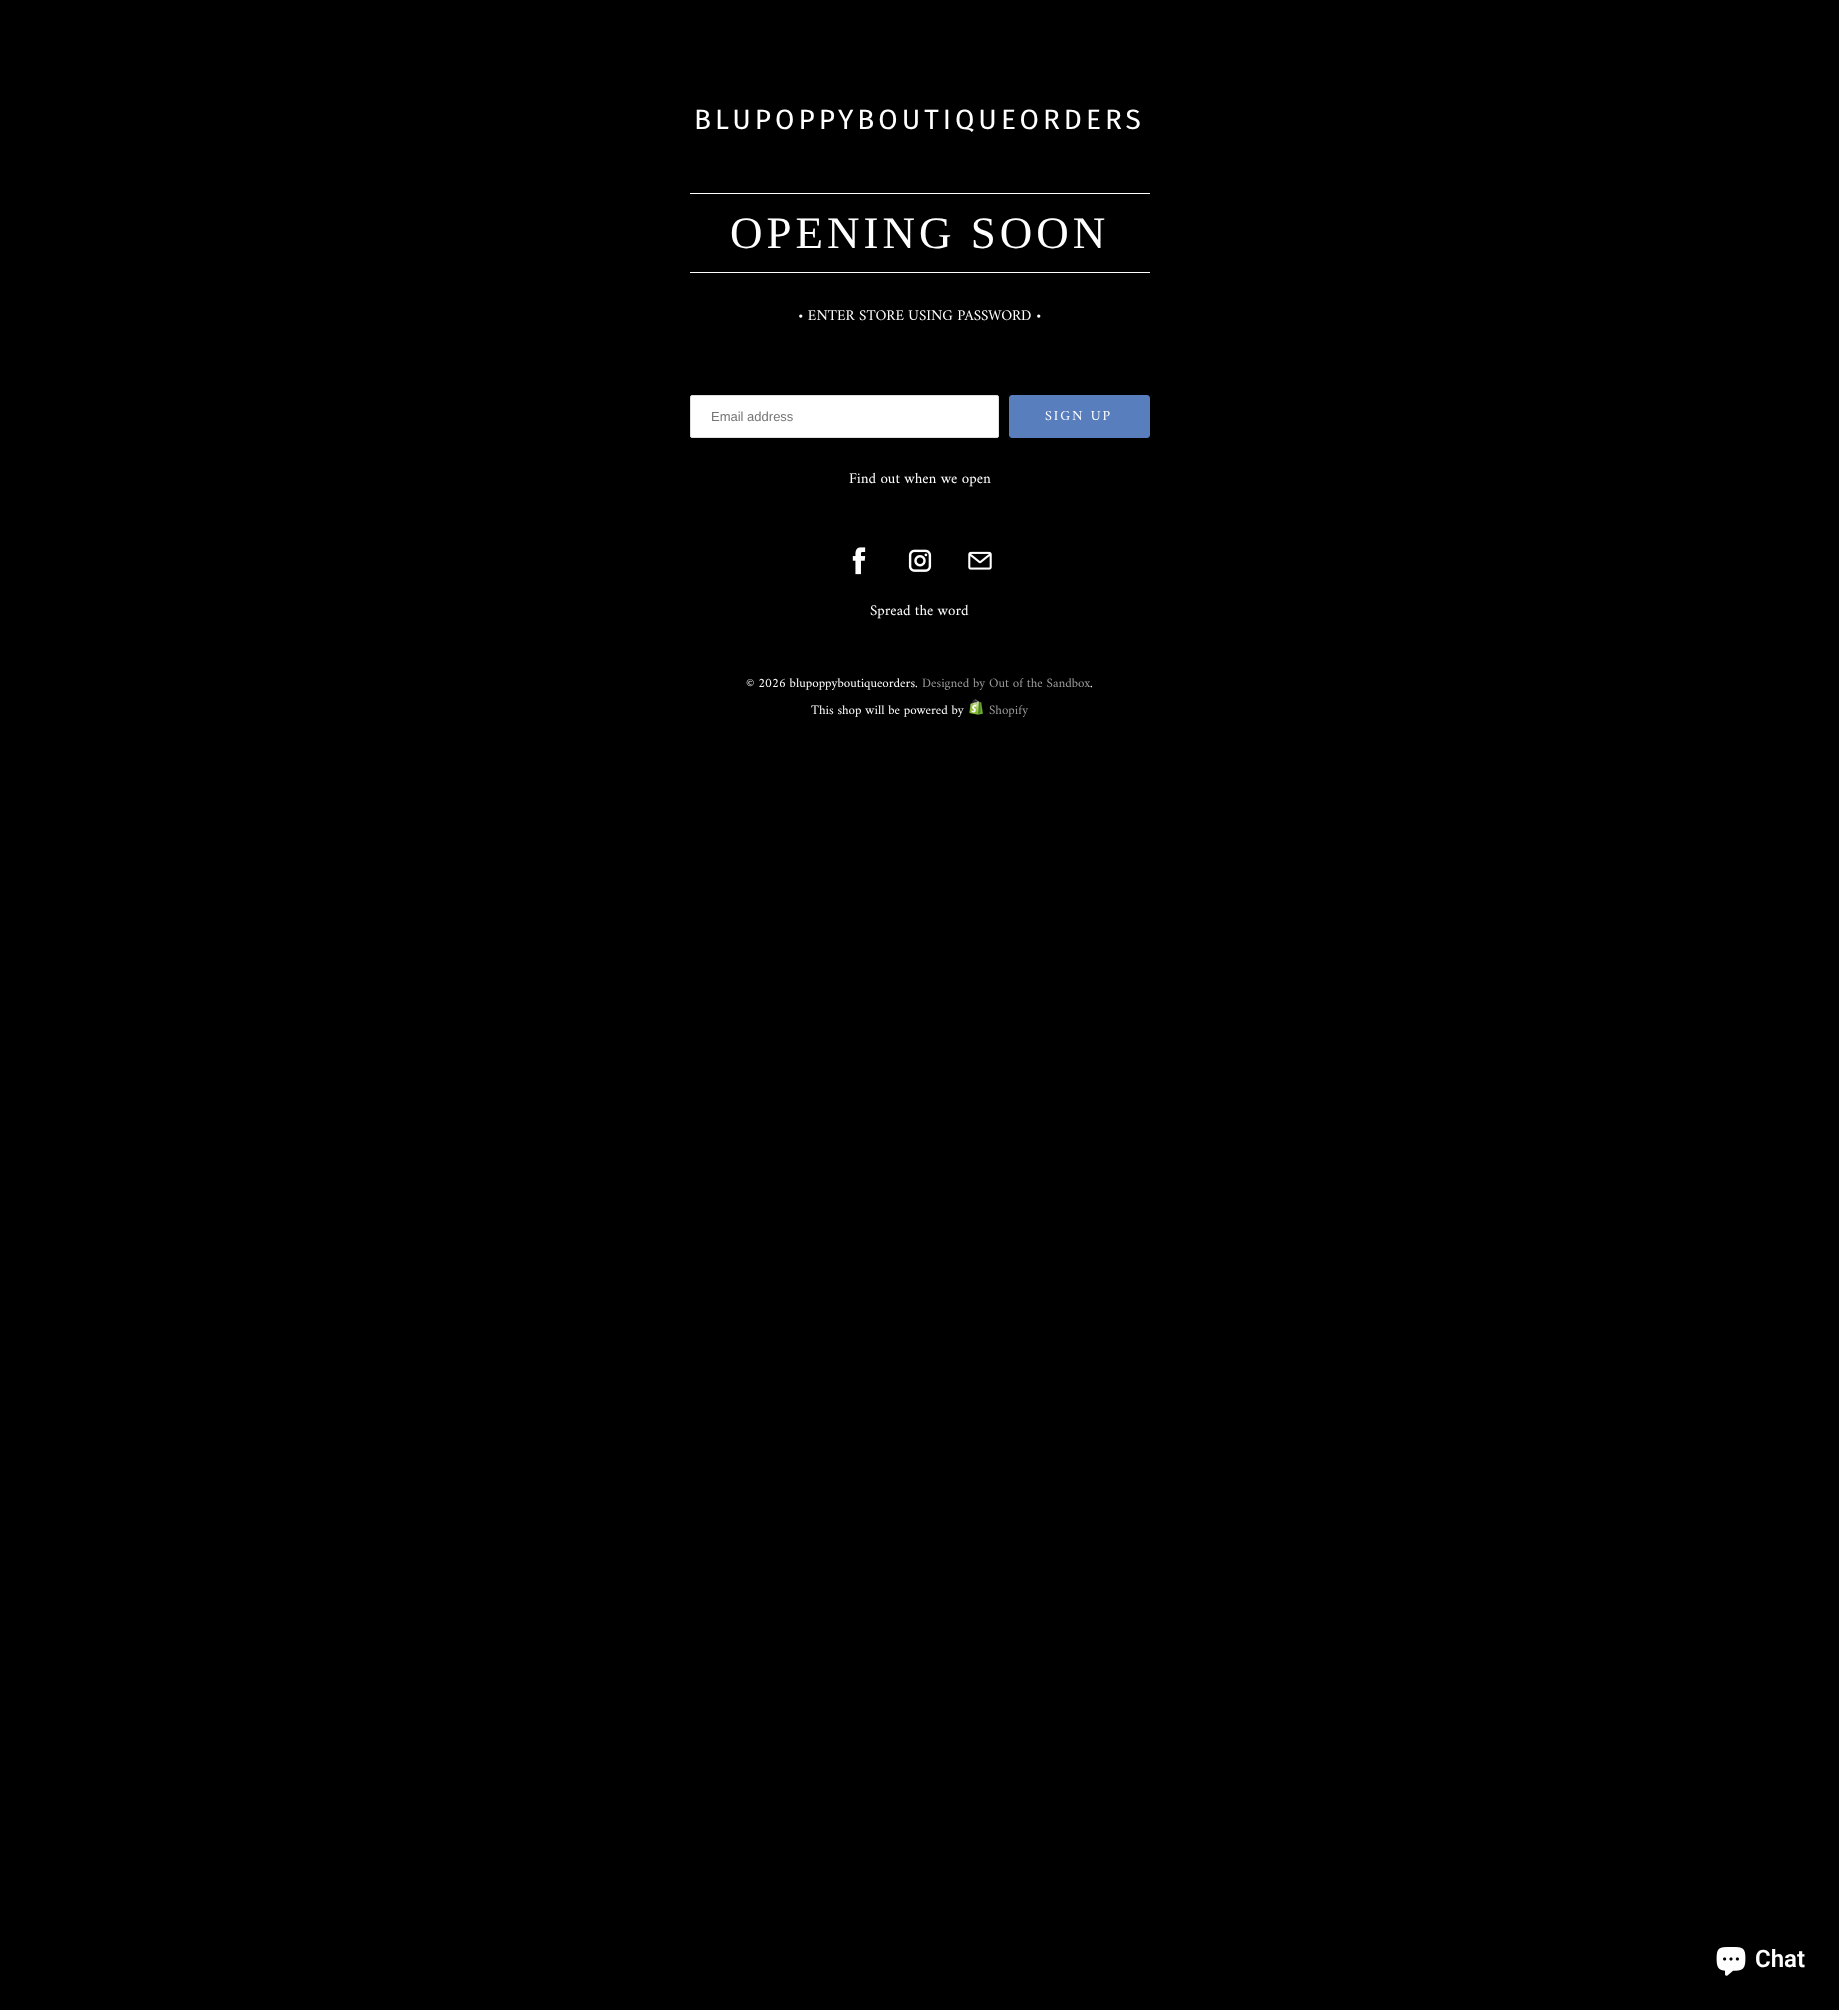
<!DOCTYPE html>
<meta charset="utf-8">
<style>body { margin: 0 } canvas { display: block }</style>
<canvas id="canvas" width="1839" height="2010"></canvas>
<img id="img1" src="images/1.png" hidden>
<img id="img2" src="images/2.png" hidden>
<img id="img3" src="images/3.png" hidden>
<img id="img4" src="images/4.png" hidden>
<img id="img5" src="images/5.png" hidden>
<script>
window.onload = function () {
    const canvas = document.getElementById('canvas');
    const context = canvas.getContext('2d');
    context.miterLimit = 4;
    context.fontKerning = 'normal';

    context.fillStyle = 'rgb(0, 0, 0)';
    context.fillRect(0, 0, 1839, 2010);
    context.fillStyle = 'rgb(255, 255, 255)';
    context.fillRect(690, 193, 460, 1);
    context.fillRect(690, 272, 460, 1);
    context.beginPath();
    context.roundRect(690.5, 395.5, 308, 42, 1.5);
    context.fill();
    context.strokeStyle = 'rgb(223, 223, 223)';
    context.stroke();
    context.fillStyle = 'rgb(89, 126, 190)';
    context.beginPath();
    context.roundRect(1009.5, 395.5, 140, 42, 2.5);
    context.fill();
    context.strokeStyle = 'rgb(89, 126, 190)';
    context.stroke();
    context.drawImage(document.getElementById('img1'), 852, 547, 14, 28);
    context.drawImage(document.getElementById('img2'), 908, 549, 24, 23);
    context.drawImage(document.getElementById('img3'), 968, 551, 24, 19);
    context.drawImage(document.getElementById('img4'), 969, 699, 14, 16);
    context.drawImage(document.getElementById('img5'), 1716, 1947, 30, 29);
    context.letterSpacing = '4px';
    context.font = '28px Fira Sans';
    context.fillStyle = 'rgb(255, 255, 255)';
    context.fillText('BLUPOPPYBOUTIQUEORDERS', 694, 129);
    context.font = '45px Liberation Serif';
    context.fillText('OPENING SOON', 730, 248);
    context.letterSpacing = '0px';
    context.font = '15px Amiri';
    context.fillText('• ENTER STORE USING PASSWORD •', 798, 320);
    context.font = '13px Liberation Sans';
    context.fillStyle = 'rgb(117, 117, 117)';
    context.fillText('Email address', 711, 421);
    context.letterSpacing = '2px';
    context.font = '14px Amiri';
    context.fillStyle = 'rgb(255, 255, 255)';
    context.fillText('SIGN UP', 1045, 420);
    context.letterSpacing = '0px';
    context.font = '15px Amiri';
    context.fillText('Find out when we open', 849, 483);
    context.fillText('Spread the word', 870, 615);
    context.font = '13px Amiri';
    context.fillText('© 2026 blupoppyboutiqueorders.', 746, 687);
    context.fillStyle = 'rgb(156, 156, 156)';
    context.fillText('Designed by Out of the Sandbox', 922, 687);
    context.fillStyle = 'rgb(255, 255, 255)';
    context.fillText('.', 1090, 687);
    context.fillText('This shop will be powered by', 811, 714);
    context.fillStyle = 'rgb(156, 156, 156)';
    context.fillText('Shopify', 989, 714);
    context.font = '600 24px Roboto';
    context.fillStyle = 'rgb(255, 255, 255)';
    context.fillText('Chat', 1755, 1967);
};
</script>
